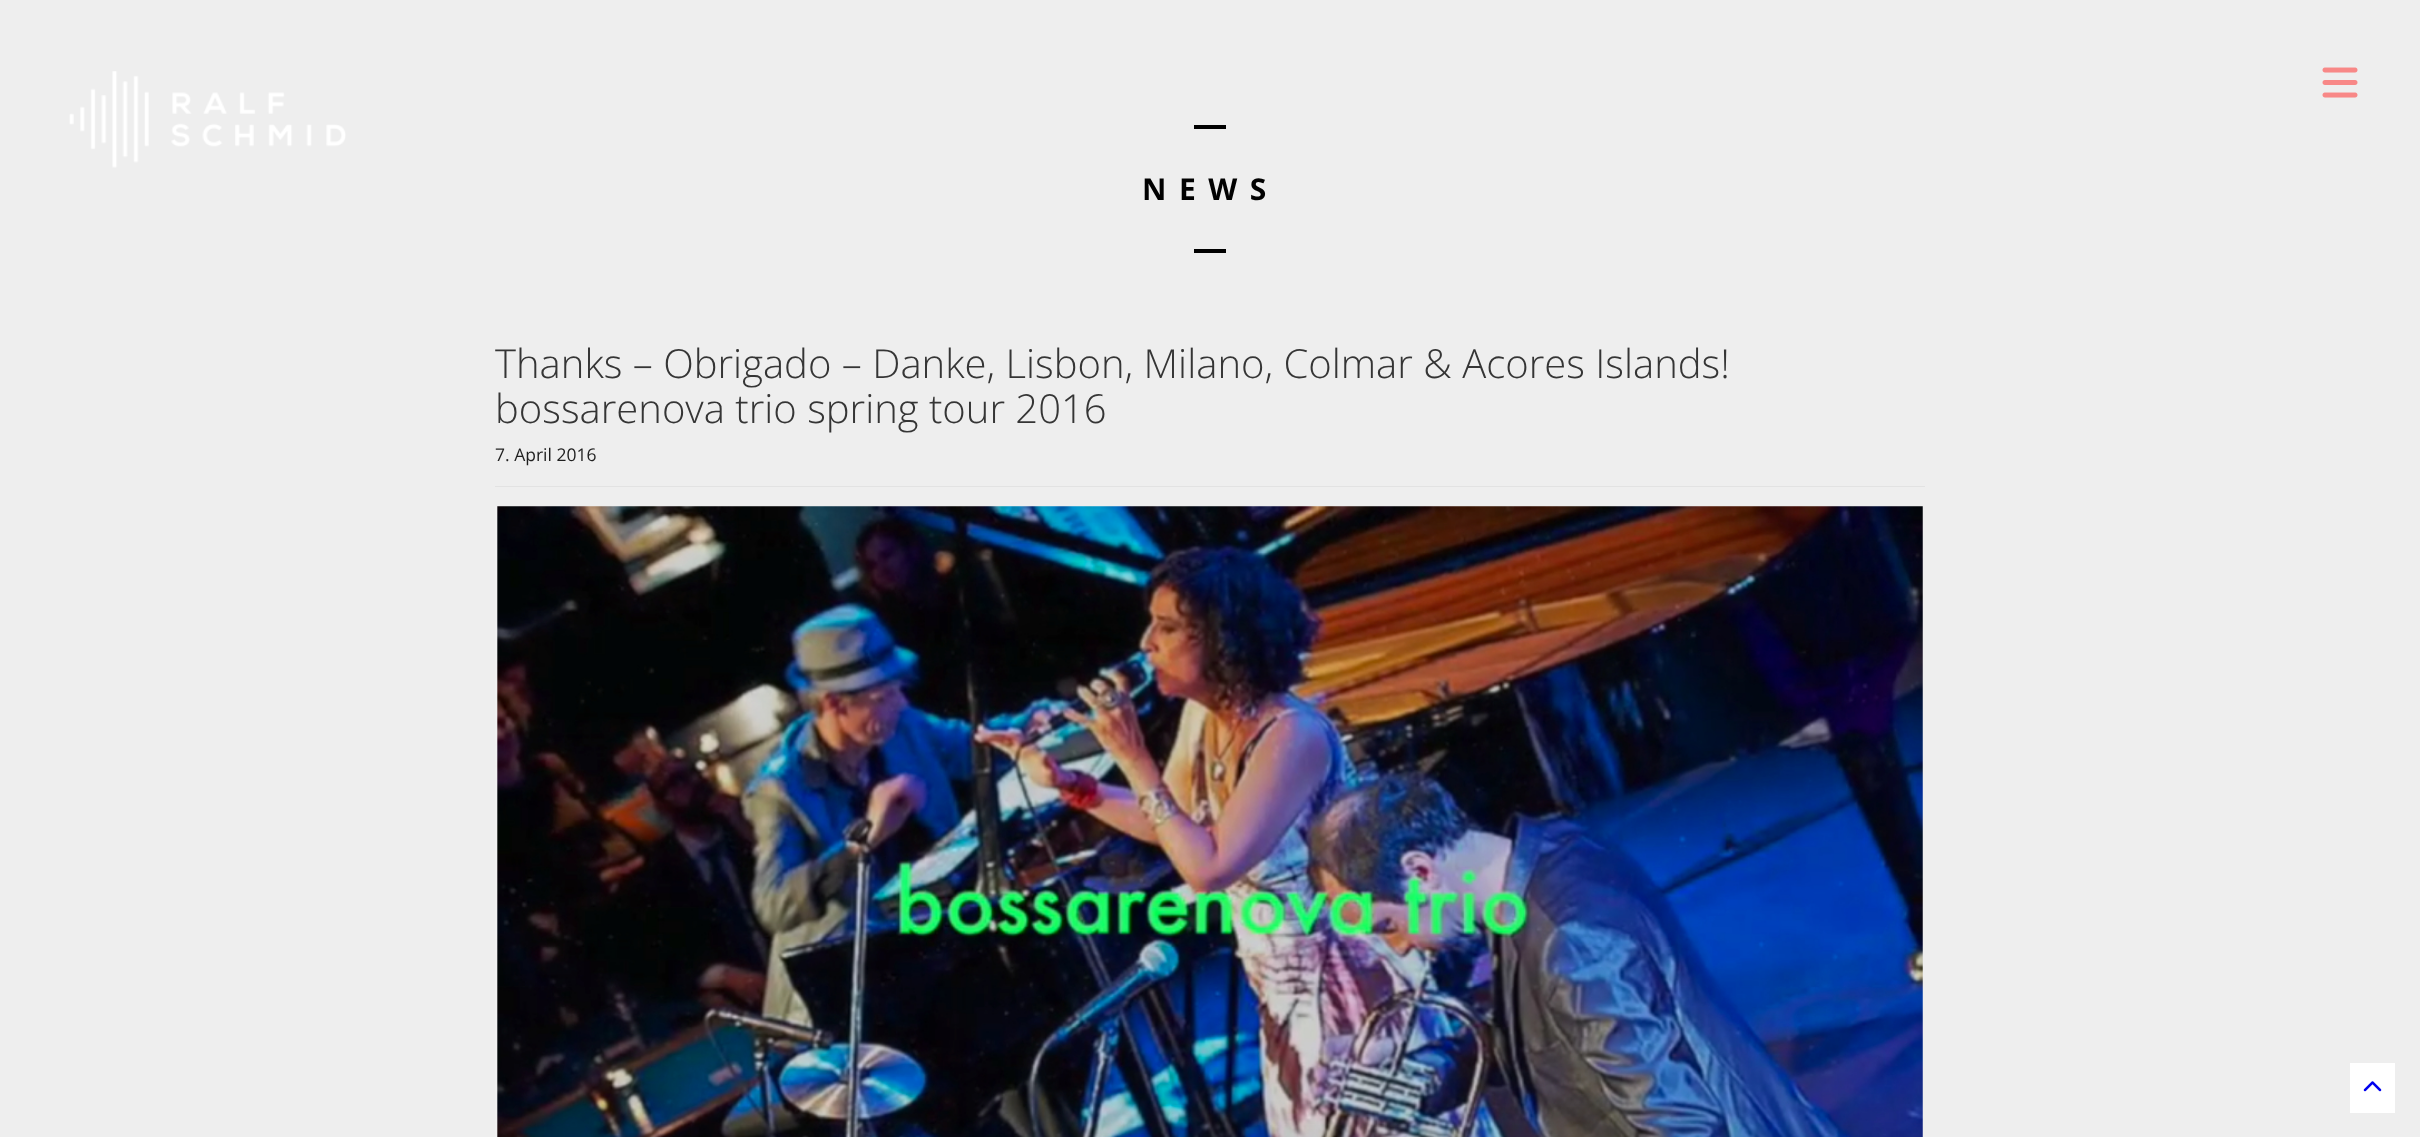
<!DOCTYPE html>
<meta charset="utf-8">
<style>body { margin: 0 } canvas { display: block }</style>
<canvas id="canvas" width="2420" height="1137"></canvas>
<img id="img1" src="images/1.png" hidden>
<img id="img2" src="images/2.png" hidden>
<img id="img3" src="images/3.png" hidden>
<img id="img4" src="images/4.png" hidden>
<script>
window.onload = function () {
    const canvas = document.getElementById('canvas');
    const context = canvas.getContext('2d');
    context.miterLimit = 4;
    context.fontKerning = 'normal';

    context.fillStyle = 'rgb(238, 238, 238)';
    context.fillRect(0, 0, 2420, 1137);
    context.drawImage(document.getElementById('img1'), 69, 71, 277, 97);
    context.drawImage(document.getElementById('img2'), 2322, 67, 36, 31);
    context.fillStyle = 'rgb(0, 0, 0)';
    context.fillRect(1194, 125, 32, 4);
    context.fillRect(1194, 249, 32, 4);
    context.fillStyle = 'rgb(226, 226, 226)';
    context.fillRect(495, 486, 1430, 1);
    context.drawImage(document.getElementById('img3'), 495, 506, 1428, 631);
    context.fillStyle = 'rgb(255, 255, 255)';
    context.fillRect(2350, 1063, 45, 50);
    context.drawImage(document.getElementById('img4'), 2363, 1081, 19, 11);
    context.letterSpacing = '12.5px';
    context.font = 'bold 30px Open Sans';
    context.fillStyle = 'rgb(1, 1, 1)';
    context.fillText('NEWS', 1142, 200);
    context.letterSpacing = '0px';
    context.font = '300 40px Open Sans';
    context.fillStyle = 'rgb(53, 53, 53)';
    context.fillText('Thanks – Obrigado – Danke, Lisbon, Milano, Colmar & Acores Islands!', 495, 378);
    context.fillText('bossarenova trio spring tour 2016', 495, 423);
    context.font = '17.5px Open Sans';
    context.fillStyle = 'rgb(31, 31, 31)';
    context.fillText('7. April 2016', 495, 461);
};
</script>
